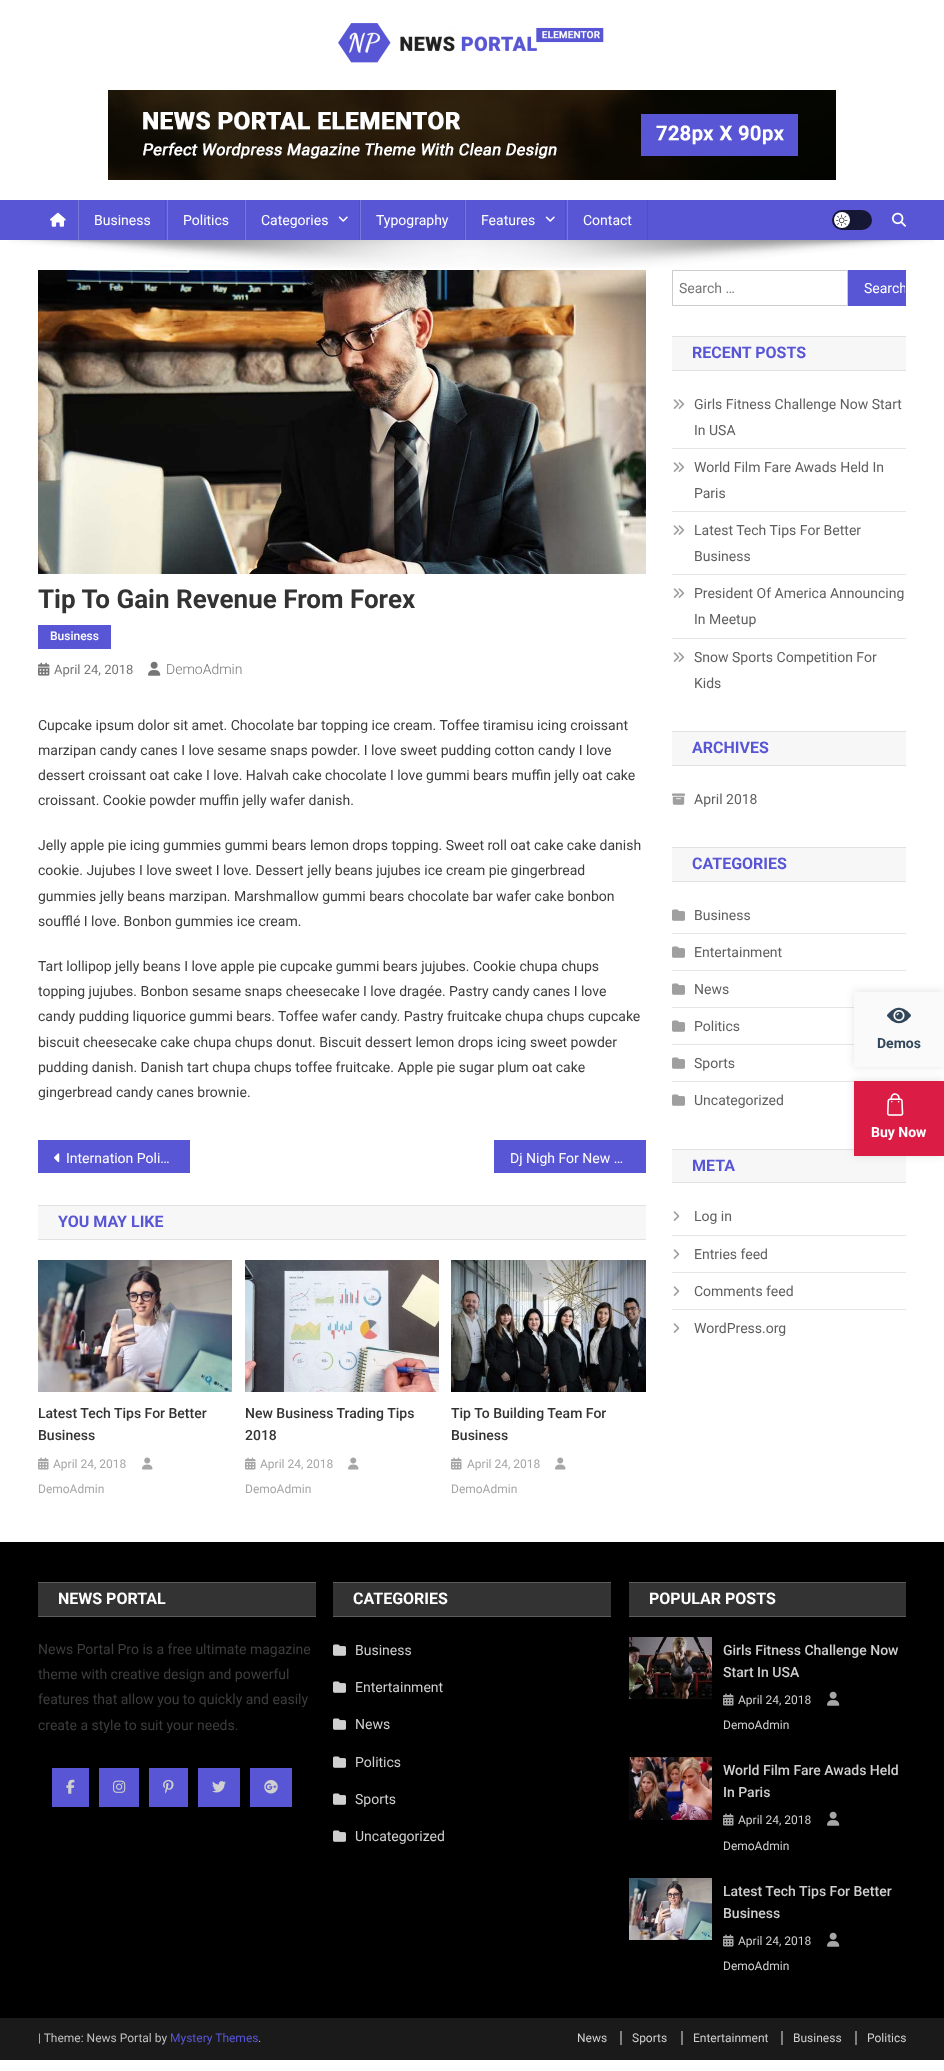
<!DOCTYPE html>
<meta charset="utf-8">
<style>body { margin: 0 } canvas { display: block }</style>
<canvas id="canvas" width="944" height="2071"></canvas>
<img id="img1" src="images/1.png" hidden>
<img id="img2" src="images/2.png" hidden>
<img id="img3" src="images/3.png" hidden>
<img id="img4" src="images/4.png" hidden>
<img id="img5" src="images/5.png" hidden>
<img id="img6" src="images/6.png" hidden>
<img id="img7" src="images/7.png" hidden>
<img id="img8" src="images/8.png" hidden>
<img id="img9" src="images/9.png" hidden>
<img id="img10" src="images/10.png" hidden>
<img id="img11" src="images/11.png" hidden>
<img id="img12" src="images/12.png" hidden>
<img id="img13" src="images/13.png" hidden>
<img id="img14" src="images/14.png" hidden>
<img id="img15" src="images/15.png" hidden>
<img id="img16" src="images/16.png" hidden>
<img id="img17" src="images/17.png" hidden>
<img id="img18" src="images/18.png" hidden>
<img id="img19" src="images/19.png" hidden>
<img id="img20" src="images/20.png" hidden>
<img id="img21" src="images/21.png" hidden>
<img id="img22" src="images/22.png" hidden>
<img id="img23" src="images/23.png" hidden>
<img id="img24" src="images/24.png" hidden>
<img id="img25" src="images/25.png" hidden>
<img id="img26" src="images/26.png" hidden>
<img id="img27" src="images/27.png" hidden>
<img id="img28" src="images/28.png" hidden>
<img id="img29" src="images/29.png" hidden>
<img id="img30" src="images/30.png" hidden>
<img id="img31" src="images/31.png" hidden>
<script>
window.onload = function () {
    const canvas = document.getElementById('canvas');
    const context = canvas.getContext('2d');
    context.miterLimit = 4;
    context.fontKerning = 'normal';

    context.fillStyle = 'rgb(255, 255, 255)';
    context.fillRect(0, 0, 944, 2071);
    context.drawImage(document.getElementById('img1'), 338, 23, 266, 40);
    context.drawImage(document.getElementById('img2'), 108, 90, 728, 90);
    context.fillStyle = 'rgb(88, 86, 213)';
    context.fillRect(0, 200, 944, 40);
    context.drawImage(document.getElementById('img3'), 50, 212, 16, 15);
    context.fillStyle = 'rgb(81, 79, 196)';
    context.fillRect(165, 200, 1, 40);
    context.fillStyle = 'rgb(121, 120, 221)';
    context.fillRect(78, 200, 1, 40);
    context.fillStyle = 'rgb(81, 79, 196)';
    context.fillRect(244, 200, 1, 40);
    context.fillStyle = 'rgb(121, 120, 221)';
    context.fillRect(167, 200, 1, 40);
    context.fillStyle = 'rgb(81, 79, 196)';
    context.fillRect(359, 200, 1, 40);
    context.fillStyle = 'rgb(121, 120, 221)';
    context.fillRect(245, 200, 1, 40);
    context.drawImage(document.getElementById('img4'), 338, 216, 10, 6);
    context.fillStyle = 'rgb(81, 79, 196)';
    context.fillRect(464, 200, 1, 40);
    context.fillStyle = 'rgb(121, 120, 221)';
    context.fillRect(360, 200, 1, 40);
    context.fillStyle = 'rgb(81, 79, 196)';
    context.fillRect(565, 200, 1, 40);
    context.fillStyle = 'rgb(121, 120, 221)';
    context.fillRect(465, 200, 1, 40);
    context.drawImage(document.getElementById('img4'), 545, 216, 10, 6);
    context.fillStyle = 'rgb(81, 79, 196)';
    context.fillRect(647, 200, 1, 40);
    context.fillStyle = 'rgb(121, 120, 221)';
    context.fillRect(567, 200, 1, 40);
    context.fillStyle = 'rgb(22, 22, 53)';
    context.beginPath();
    context.roundRect(832, 210, 40, 20, 10);
    context.fill();
    context.fillStyle = 'rgb(255, 255, 255)';
    context.beginPath();
    context.arc(842, 220, 8, 0, 2 * Math.PI);
    context.fill();
    context.drawImage(document.getElementById('img5'), 836, 214, 12, 12);
    context.drawImage(document.getElementById('img6'), 892, 212, 14, 15);
    context.drawImage(document.getElementById('img7'), 9, 240, 925, 28);
    context.drawImage(document.getElementById('img8'), 38, 270, 608, 304);
    context.fillStyle = 'rgb(88, 86, 213)';
    context.fillRect(38, 625, 73, 24);
    context.drawImage(document.getElementById('img9'), 38, 662, 12, 14);
    context.drawImage(document.getElementById('img10'), 148, 661, 13, 15);
    context.fillRect(38, 1140, 152, 33);
    context.drawImage(document.getElementById('img11'), 54, 1153, 6, 10);
    context.fillRect(494, 1140, 152, 33);
    context.fillStyle = 'rgb(247, 247, 247)';
    context.fillRect(38, 1206, 608, 33);
    context.fillStyle = 'rgb(225, 225, 225)';
    context.fillRect(38, 1205, 608, 1);
    context.fillRect(38, 1239, 608, 1);
    context.drawImage(document.getElementById('img12'), 38, 1260, 194, 132);
    context.drawImage(document.getElementById('img13'), 38, 1457, 11, 13);
    context.drawImage(document.getElementById('img14'), 142, 1457, 11, 13);
    context.drawImage(document.getElementById('img15'), 245, 1260, 194, 132);
    context.drawImage(document.getElementById('img13'), 245, 1457, 11, 13);
    context.drawImage(document.getElementById('img14'), 348, 1457, 11, 13);
    context.drawImage(document.getElementById('img16'), 451, 1260, 195, 132);
    context.drawImage(document.getElementById('img13'), 451, 1457, 11, 13);
    context.drawImage(document.getElementById('img14'), 555, 1457, 11, 13);
    context.strokeStyle = 'rgb(204, 204, 204)';
    context.strokeRect(672.5, 270.5, 175, 35);
    context.fillStyle = 'rgb(88, 86, 213)';
    context.fillRect(848, 270, 58, 36);
    context.fillStyle = 'rgb(247, 247, 247)';
    context.fillRect(672, 337, 234, 33);
    context.fillStyle = 'rgb(225, 225, 225)';
    context.fillRect(672, 336, 234, 1);
    context.fillRect(672, 370, 234, 1);
    context.fillStyle = 'rgb(230, 230, 230)';
    context.fillRect(672, 448, 234, 1);
    context.drawImage(document.getElementById('img17'), 673, 399, 12, 10);
    context.fillRect(672, 511, 234, 1);
    context.drawImage(document.getElementById('img17'), 673, 462, 12, 10);
    context.fillRect(672, 574, 234, 1);
    context.drawImage(document.getElementById('img17'), 673, 525, 12, 10);
    context.fillRect(672, 638, 234, 1);
    context.drawImage(document.getElementById('img17'), 673, 588, 12, 10);
    context.drawImage(document.getElementById('img17'), 673, 652, 12, 10);
    context.fillStyle = 'rgb(247, 247, 247)';
    context.fillRect(672, 732, 234, 33);
    context.fillStyle = 'rgb(225, 225, 225)';
    context.fillRect(672, 731, 234, 1);
    context.fillRect(672, 765, 234, 1);
    context.drawImage(document.getElementById('img18'), 672, 793, 13, 12);
    context.fillStyle = 'rgb(247, 247, 247)';
    context.fillRect(672, 848, 234, 33);
    context.fillStyle = 'rgb(225, 225, 225)';
    context.fillRect(672, 847, 234, 1);
    context.fillRect(672, 881, 234, 1);
    context.fillStyle = 'rgb(230, 230, 230)';
    context.fillRect(672, 933, 234, 1);
    context.drawImage(document.getElementById('img19'), 672, 909, 13, 12);
    context.fillRect(672, 970, 234, 1);
    context.drawImage(document.getElementById('img19'), 672, 946, 13, 12);
    context.fillRect(672, 1007, 182, 1);
    context.drawImage(document.getElementById('img19'), 672, 983, 13, 12);
    context.fillRect(672, 1044, 182, 1);
    context.drawImage(document.getElementById('img19'), 672, 1020, 13, 12);
    context.fillRect(672, 1081, 182, 1);
    context.drawImage(document.getElementById('img19'), 672, 1057, 13, 12);
    context.drawImage(document.getElementById('img19'), 672, 1094, 13, 12);
    context.fillStyle = 'rgb(247, 247, 247)';
    context.fillRect(672, 1150, 234, 32);
    context.fillStyle = 'rgb(225, 225, 225)';
    context.fillRect(672, 1149, 182, 1);
    context.fillRect(672, 1182, 234, 1);
    context.fillStyle = 'rgb(230, 230, 230)';
    context.fillRect(672, 1235, 234, 1);
    context.drawImage(document.getElementById('img20'), 673, 1211, 7, 10);
    context.fillRect(672, 1272, 234, 1);
    context.drawImage(document.getElementById('img20'), 673, 1249, 7, 10);
    context.fillRect(672, 1309, 234, 1);
    context.drawImage(document.getElementById('img20'), 673, 1286, 7, 10);
    context.drawImage(document.getElementById('img20'), 673, 1323, 7, 10);
    context.fillStyle = 'rgb(0, 0, 0)';
    context.fillRect(0, 1542, 944, 476);
    context.fillStyle = 'rgb(51, 51, 51)';
    context.fillRect(38, 1583, 278, 33);
    context.fillStyle = 'rgb(92, 92, 92)';
    context.fillRect(38, 1582, 278, 1);
    context.fillRect(38, 1616, 278, 1);
    context.fillStyle = 'rgb(88, 86, 213)';
    context.fillRect(52, 1768, 37, 39);
    context.drawImage(document.getElementById('img21'), 66, 1779, 9, 15);
    context.fillRect(99, 1768, 40, 39);
    context.drawImage(document.getElementById('img22'), 113, 1780, 13, 13);
    context.fillRect(149, 1768, 39, 39);
    context.drawImage(document.getElementById('img23'), 163, 1779, 11, 15);
    context.fillRect(198, 1768, 42, 39);
    context.drawImage(document.getElementById('img24'), 212, 1781, 14, 12);
    context.fillRect(250, 1768, 42, 39);
    context.drawImage(document.getElementById('img25'), 264, 1780, 14, 14);
    context.fillStyle = 'rgb(51, 51, 51)';
    context.fillRect(333, 1583, 278, 33);
    context.fillStyle = 'rgb(92, 92, 92)';
    context.fillRect(333, 1582, 278, 1);
    context.fillRect(333, 1616, 278, 1);
    context.drawImage(document.getElementById('img26'), 333, 1644, 13, 12);
    context.drawImage(document.getElementById('img26'), 333, 1681, 13, 12);
    context.drawImage(document.getElementById('img26'), 333, 1718, 13, 12);
    context.drawImage(document.getElementById('img26'), 333, 1756, 13, 12);
    context.drawImage(document.getElementById('img26'), 333, 1793, 13, 12);
    context.drawImage(document.getElementById('img26'), 333, 1830, 13, 12);
    context.fillStyle = 'rgb(51, 51, 51)';
    context.fillRect(629, 1583, 277, 33);
    context.fillStyle = 'rgb(92, 92, 92)';
    context.fillRect(629, 1582, 277, 1);
    context.fillRect(629, 1616, 277, 1);
    context.drawImage(document.getElementById('img27'), 629, 1637, 83, 62);
    context.drawImage(document.getElementById('img28'), 723, 1693, 11, 13);
    context.drawImage(document.getElementById('img29'), 827, 1691, 13, 15);
    context.drawImage(document.getElementById('img30'), 629, 1757, 83, 63);
    context.drawImage(document.getElementById('img28'), 723, 1813, 11, 13);
    context.drawImage(document.getElementById('img29'), 827, 1811, 13, 15);
    context.drawImage(document.getElementById('img31'), 629, 1878, 83, 62);
    context.drawImage(document.getElementById('img28'), 723, 1934, 11, 13);
    context.drawImage(document.getElementById('img29'), 827, 1932, 13, 15);
    context.fillStyle = 'rgb(26, 26, 26)';
    context.fillRect(0, 2018, 944, 42);
    context.fillStyle = 'rgb(127, 127, 127)';
    context.fillRect(620, 2031, 2, 14);
    context.fillRect(681, 2031, 2, 14);
    context.fillRect(781, 2031, 2, 14);
    context.fillRect(855, 2031, 2, 14);
    context.fillStyle = 'rgba(0, 0, 0, 0.1)';
    context.filter = 'blur(4px)';
    context.beginPath();
    context.rect(854, 991, 90, 76);
    context.fill();
    context.filter = 'none';
    context.fillStyle = 'rgb(250, 250, 250)';
    context.fillRect(854, 992, 90, 75);
    context.fillStyle = 'rgba(0, 0, 0, 0.1)';
    context.filter = 'blur(4px)';
    context.beginPath();
    context.rect(854, 1080, 90, 76);
    context.fill();
    context.filter = 'none';
    context.fillStyle = 'rgb(219, 29, 70)';
    context.fillRect(854, 1081, 90, 75);
    context.font = '14px Roboto';
    context.fillStyle = 'rgb(255, 255, 255)';
    context.fillText('Business', 94, 225);
    context.fillText('Politics', 183, 225);
    context.fillText('Categories', 261, 225);
    context.fillText('Typography', 376, 225);
    context.fillText('Features', 481, 225);
    context.fillText('Contact', 583, 225);
    context.font = 'bold 26px Roboto';
    context.fillStyle = 'rgb(51, 51, 51)';
    context.fillText('Tip To Gain Revenue From Forex', 38, 608);
    context.font = '500 12px Roboto';
    context.fillStyle = 'rgb(255, 255, 255)';
    context.fillText('Business', 50, 640);
    context.font = '13px Roboto';
    context.fillStyle = 'rgb(118, 118, 118)';
    context.fillText('April 24, 2018', 54, 674);
    context.font = '300 14px Roboto';
    context.fillText('DemoAdmin', 166, 674);
    context.font = '14px Roboto';
    context.fillStyle = 'rgb(61, 61, 61)';
    context.fillText('Cupcake ipsum dolor sit amet. Chocolate bar topping ice cream. Toffee tiramisu icing croissant', 38, 730);
    context.fillText('marzipan candy canes I love sesame snaps powder. I love sweet pudding cotton candy I love', 38, 755);
    context.fillText('dessert croissant oat cake I love. Halvah cake chocolate I love gummi bears muffin jelly oat cake', 38, 780);
    context.fillText('croissant. Cookie powder muffin jelly wafer danish.', 38, 805);
    context.fillText('Jelly apple pie icing gummies gummi bears lemon drops topping. Sweet roll oat cake cake danish', 38, 850);
    context.fillText('cookie. Jujubes I love sweet I love. Dessert jelly beans jujubes ice cream pie gingerbread', 38, 875);
    context.fillText('gummies jelly beans marzipan. Marshmallow gummi bears chocolate bar wafer cake bonbon', 38, 901);
    context.fillText('soufflé I love. Bonbon gummies ice cream.', 38, 926);
    context.fillText('Tart lollipop jelly beans I love apple pie cupcake gummi bears jujubes. Cookie chupa chups', 38, 971);
    context.fillText('topping jujubes. Bonbon sesame snaps cheesecake I love dragée. Pastry candy canes I love', 38, 996);
    context.fillText('candy pudding liquorice gummi bears. Toffee wafer candy. Pastry fruitcake chupa chups cupcake', 38, 1021);
    context.fillText('biscuit cheesecake cake chupa chups donut. Biscuit dessert lemon drops icing sweet powder', 38, 1047);
    context.fillText('pudding danish. Danish tart chupa chups toffee fruitcake. Apple pie sugar plum oat cake', 38, 1072);
    context.fillText('gingerbread candy canes brownie.', 38, 1097);
    context.fillStyle = 'rgb(255, 255, 255)';
    context.fillText('Internation Poli…', 66, 1163);
    context.fillText('Dj Nigh For New …', 510, 1163);
    context.font = 'bold 16px Roboto';
    context.fillStyle = 'rgb(88, 86, 213)';
    context.fillText('YOU MAY LIKE', 58, 1227);
    context.font = '500 14px Roboto';
    context.fillStyle = 'rgb(51, 51, 51)';
    context.fillText('Latest Tech Tips For Better', 38, 1418);
    context.fillText('Business', 38, 1440);
    context.font = '12px Roboto';
    context.fillStyle = 'rgb(166, 166, 166)';
    context.fillText('April 24, 2018', 53, 1468);
    context.fillText('DemoAdmin', 38, 1493);
    context.font = '500 14px Roboto';
    context.fillStyle = 'rgb(51, 51, 51)';
    context.fillText('New Business Trading Tips', 245, 1418);
    context.fillText('2018', 245, 1440);
    context.font = '12px Roboto';
    context.fillStyle = 'rgb(166, 166, 166)';
    context.fillText('April 24, 2018', 260, 1468);
    context.fillText('DemoAdmin', 245, 1493);
    context.font = '500 14px Roboto';
    context.fillStyle = 'rgb(51, 51, 51)';
    context.fillText('Tip To Building Team For', 451, 1418);
    context.fillText('Business', 451, 1440);
    context.font = '12px Roboto';
    context.fillStyle = 'rgb(166, 166, 166)';
    context.fillText('April 24, 2018', 467, 1468);
    context.fillText('DemoAdmin', 451, 1493);
    context.font = '14px Roboto';
    context.fillStyle = 'rgb(118, 118, 118)';
    context.fillText('Search …', 679, 293);
    context.save();
    context.beginPath();
    context.rect(849, 271, 56, 34);
    context.clip();
    context.fillStyle = 'rgb(255, 255, 255)';
    context.fillText('Search', 864, 293);
    context.restore();
    context.font = 'bold 16px Roboto';
    context.fillStyle = 'rgb(88, 86, 213)';
    context.fillText('RECENT POSTS', 692, 358);
    context.font = '14px Roboto';
    context.fillStyle = 'rgb(95, 95, 95)';
    context.fillText('Girls Fitness Challenge Now Start', 694, 409);
    context.fillText('In USA', 694, 435);
    context.fillText('World Film Fare Awads Held In', 694, 472);
    context.fillText('Paris', 694, 498);
    context.fillText('Latest Tech Tips For Better', 694, 535);
    context.fillText('Business', 694, 561);
    context.fillText('President Of America Announcing', 694, 598);
    context.fillText('In Meetup', 694, 624);
    context.fillText('Snow Sports Competition For', 694, 662);
    context.fillText('Kids', 694, 688);
    context.font = 'bold 16px Roboto';
    context.fillStyle = 'rgb(88, 86, 213)';
    context.fillText('ARCHIVES', 692, 753);
    context.font = '14px Roboto';
    context.fillStyle = 'rgb(95, 95, 95)';
    context.fillText('April 2018', 694, 804);
    context.font = 'bold 16px Roboto';
    context.fillStyle = 'rgb(88, 86, 213)';
    context.fillText('CATEGORIES', 692, 869);
    context.font = '14px Roboto';
    context.fillStyle = 'rgb(95, 95, 95)';
    context.fillText('Business', 694, 920);
    context.fillText('Entertainment', 694, 957);
    context.fillText('News', 694, 994);
    context.fillText('Politics', 694, 1031);
    context.fillText('Sports', 694, 1068);
    context.fillText('Uncategorized', 694, 1105);
    context.font = 'bold 16px Roboto';
    context.fillStyle = 'rgb(88, 86, 213)';
    context.fillText('META', 692, 1171);
    context.font = '14px Roboto';
    context.fillStyle = 'rgb(95, 95, 95)';
    context.fillText('Log in', 694, 1221);
    context.fillText('Entries feed', 694, 1259);
    context.fillText('Comments feed', 694, 1296);
    context.fillText('WordPress.org', 694, 1333);
    context.font = 'bold 16px Roboto';
    context.fillStyle = 'rgb(255, 255, 255)';
    context.fillText('NEWS PORTAL', 58, 1604);
    context.font = '14px Roboto';
    context.fillStyle = 'rgb(61, 61, 61)';
    context.fillText('News Portal Pro is a free ultimate magazine', 38, 1654);
    context.fillText('theme with creative design and powerful', 38, 1679);
    context.fillText('features that allow you to quickly and easily', 38, 1704);
    context.fillText('create a style to suit your needs.', 38, 1730);
    context.font = 'bold 16px Roboto';
    context.fillStyle = 'rgb(255, 255, 255)';
    context.fillText('CATEGORIES', 353, 1604);
    context.font = '14px Roboto';
    context.fillStyle = 'rgb(207, 207, 207)';
    context.fillText('Business', 355, 1655);
    context.fillText('Entertainment', 355, 1692);
    context.fillText('News', 355, 1729);
    context.fillText('Politics', 355, 1767);
    context.fillText('Sports', 355, 1804);
    context.fillText('Uncategorized', 355, 1841);
    context.font = 'bold 16px Roboto';
    context.fillStyle = 'rgb(255, 255, 255)';
    context.fillText('POPULAR POSTS', 649, 1604);
    context.font = '500 14px Roboto';
    context.fillStyle = 'rgb(207, 207, 207)';
    context.fillText('Girls Fitness Challenge Now', 723, 1655);
    context.fillText('Start In USA', 723, 1677);
    context.font = '12px Roboto';
    context.fillText('April 24, 2018', 738, 1704);
    context.fillText('DemoAdmin', 723, 1729);
    context.font = '500 14px Roboto';
    context.fillText('World Film Fare Awads Held', 723, 1775);
    context.fillText('In Paris', 723, 1797);
    context.font = '12px Roboto';
    context.fillText('April 24, 2018', 738, 1824);
    context.fillText('DemoAdmin', 723, 1850);
    context.font = '500 14px Roboto';
    context.fillText('Latest Tech Tips For Better', 723, 1896);
    context.fillText('Business', 723, 1918);
    context.font = '12px Roboto';
    context.fillText('April 24, 2018', 738, 1945);
    context.fillText('DemoAdmin', 723, 1970);
    context.fillStyle = 'rgb(191, 191, 191)';
    context.fillText('| Theme: News Portal by', 38, 2042);
    context.fillStyle = 'rgb(88, 86, 213)';
    context.fillText('Mystery Themes', 170, 2042);
    context.fillStyle = 'rgb(191, 191, 191)';
    context.fillText('.', 258, 2042);
    context.fillStyle = 'rgb(207, 207, 207)';
    context.fillText('News', 577, 2042);
    context.fillText('Sports', 632, 2042);
    context.fillText('Entertainment', 693, 2042);
    context.fillText('Business', 793, 2042);
    context.fillText('Politics', 867, 2042);
    context.font = '24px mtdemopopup';
    context.fillStyle = 'rgb(51, 71, 91)';
    context.fillText('꤃', 887, 1026);
    context.font = 'bold 14px Roboto';
    context.fillText('Demos', 877, 1048);
    context.font = '24px mtdemopopup';
    context.fillStyle = 'rgb(255, 255, 255)';
    context.fillText('꤂', 887, 1115);
    context.font = 'bold 14px Roboto';
    context.fillText('Buy Now', 871, 1137);
};
</script>
